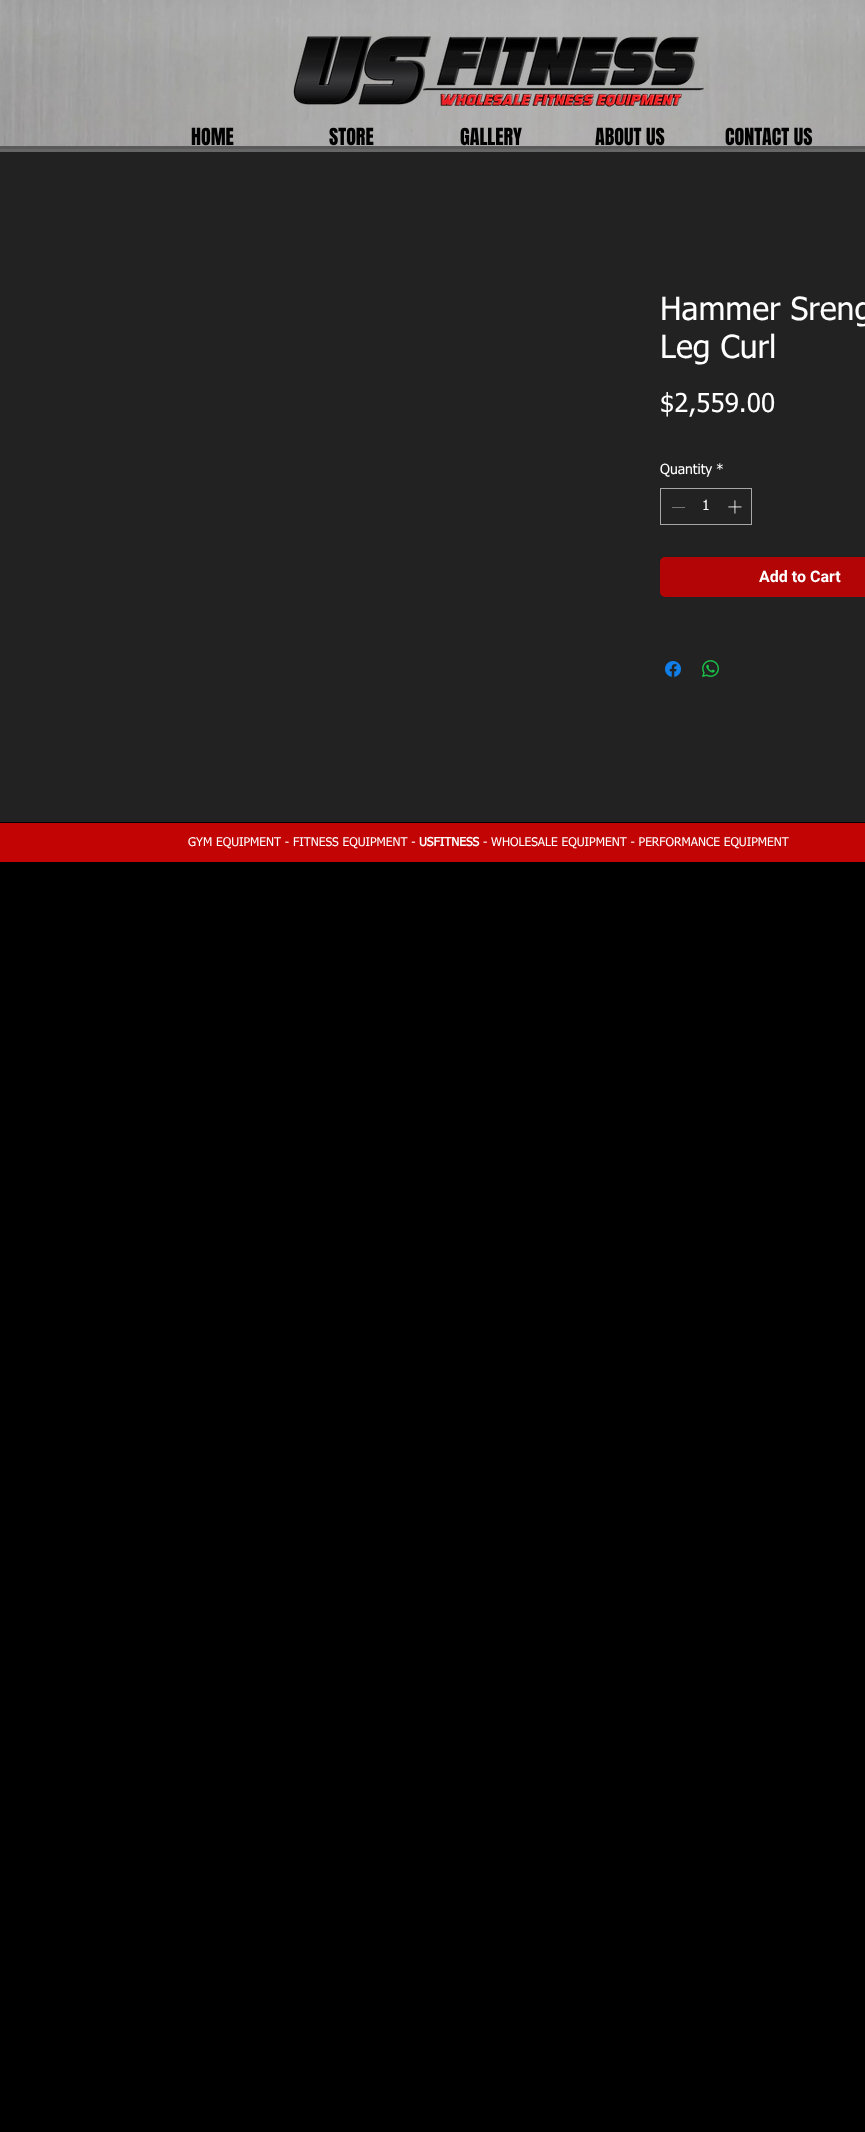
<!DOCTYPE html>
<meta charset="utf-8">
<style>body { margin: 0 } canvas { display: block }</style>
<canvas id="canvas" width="865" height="2132"></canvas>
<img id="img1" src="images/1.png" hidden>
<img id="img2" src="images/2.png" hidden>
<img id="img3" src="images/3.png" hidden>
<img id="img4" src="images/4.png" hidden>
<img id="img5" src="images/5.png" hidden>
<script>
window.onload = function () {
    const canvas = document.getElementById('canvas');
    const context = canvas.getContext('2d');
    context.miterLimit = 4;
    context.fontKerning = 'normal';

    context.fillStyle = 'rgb(0, 0, 0)';
    context.fillRect(0, 0, 865, 2132);
    context.drawImage(document.getElementById('img1'), 0, 0, 865, 146);
    context.drawImage(document.getElementById('img2'), 293, 36, 411, 71);
    context.fillStyle = 'rgb(34, 34, 34)';
    context.fillRect(0, 152, 865, 670);
    context.fillStyle = 'rgb(102, 102, 102)';
    context.fillRect(0, 149, 865, 3);
    context.strokeStyle = 'rgb(167, 167, 167)';
    context.strokeRect(660.5, 488.5, 91, 36);
    context.fillStyle = 'rgb(117, 117, 117)';
    context.fillRect(672, 507, 13, 1);
    context.drawImage(document.getElementById('img3'), 728, 500, 14, 14);
    context.fillStyle = 'rgb(179, 5, 5)';
    context.beginPath();
    context.roundRect(660, 557, 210, 40, 5);
    context.fill();
    context.drawImage(document.getElementById('img4'), 665, 661, 16, 16);
    context.drawImage(document.getElementById('img5'), 702, 660, 17, 17);
    context.fillStyle = 'rgb(194, 4, 4)';
    context.fillRect(0, 823, 865, 39);
    context.fillStyle = 'rgb(89, 89, 89)';
    context.fillRect(0, 146, 865, 3);
    context.font = '20px Anton';
    context.fillStyle = 'rgb(0, 0, 0)';
    context.fillText('HOME', 191, 145);
    context.fillText('STORE', 329, 145);
    context.fillText('GALLERY', 460, 145);
    context.fillText('ABOUT US', 595, 145);
    context.fillText('CONTACT US', 725, 145);
    context.font = '32px tahoma';
    context.fillStyle = 'rgb(255, 255, 255)';
    context.fillText('Hammer Sreng', 660, 320);
    context.fillText('Leg Curl', 660, 358);
    context.font = '26px tahoma';
    context.fillText('$2,559.00', 660, 412);
    context.font = '14px tahoma';
    context.fillText('Quantity', 660, 474);
    context.fillText('*', 716, 474);
    context.fillText('1', 702, 510);
    context.font = 'bold 16px Roboto';
    context.fillText('Add to Cart', 759, 582);
    context.font = '12px tahoma';
    context.fillText('GYM EQUIPMENT - FITNESS EQUIPMENT -', 188, 846);
    context.font = 'bold 12px tahoma';
    context.fillText('USFITNESS', 419, 846);
    context.font = '12px tahoma';
    context.fillText('- WHOLESALE EQUIPMENT - PERFORMANCE EQUIPMENT', 483, 846);
};
</script>
